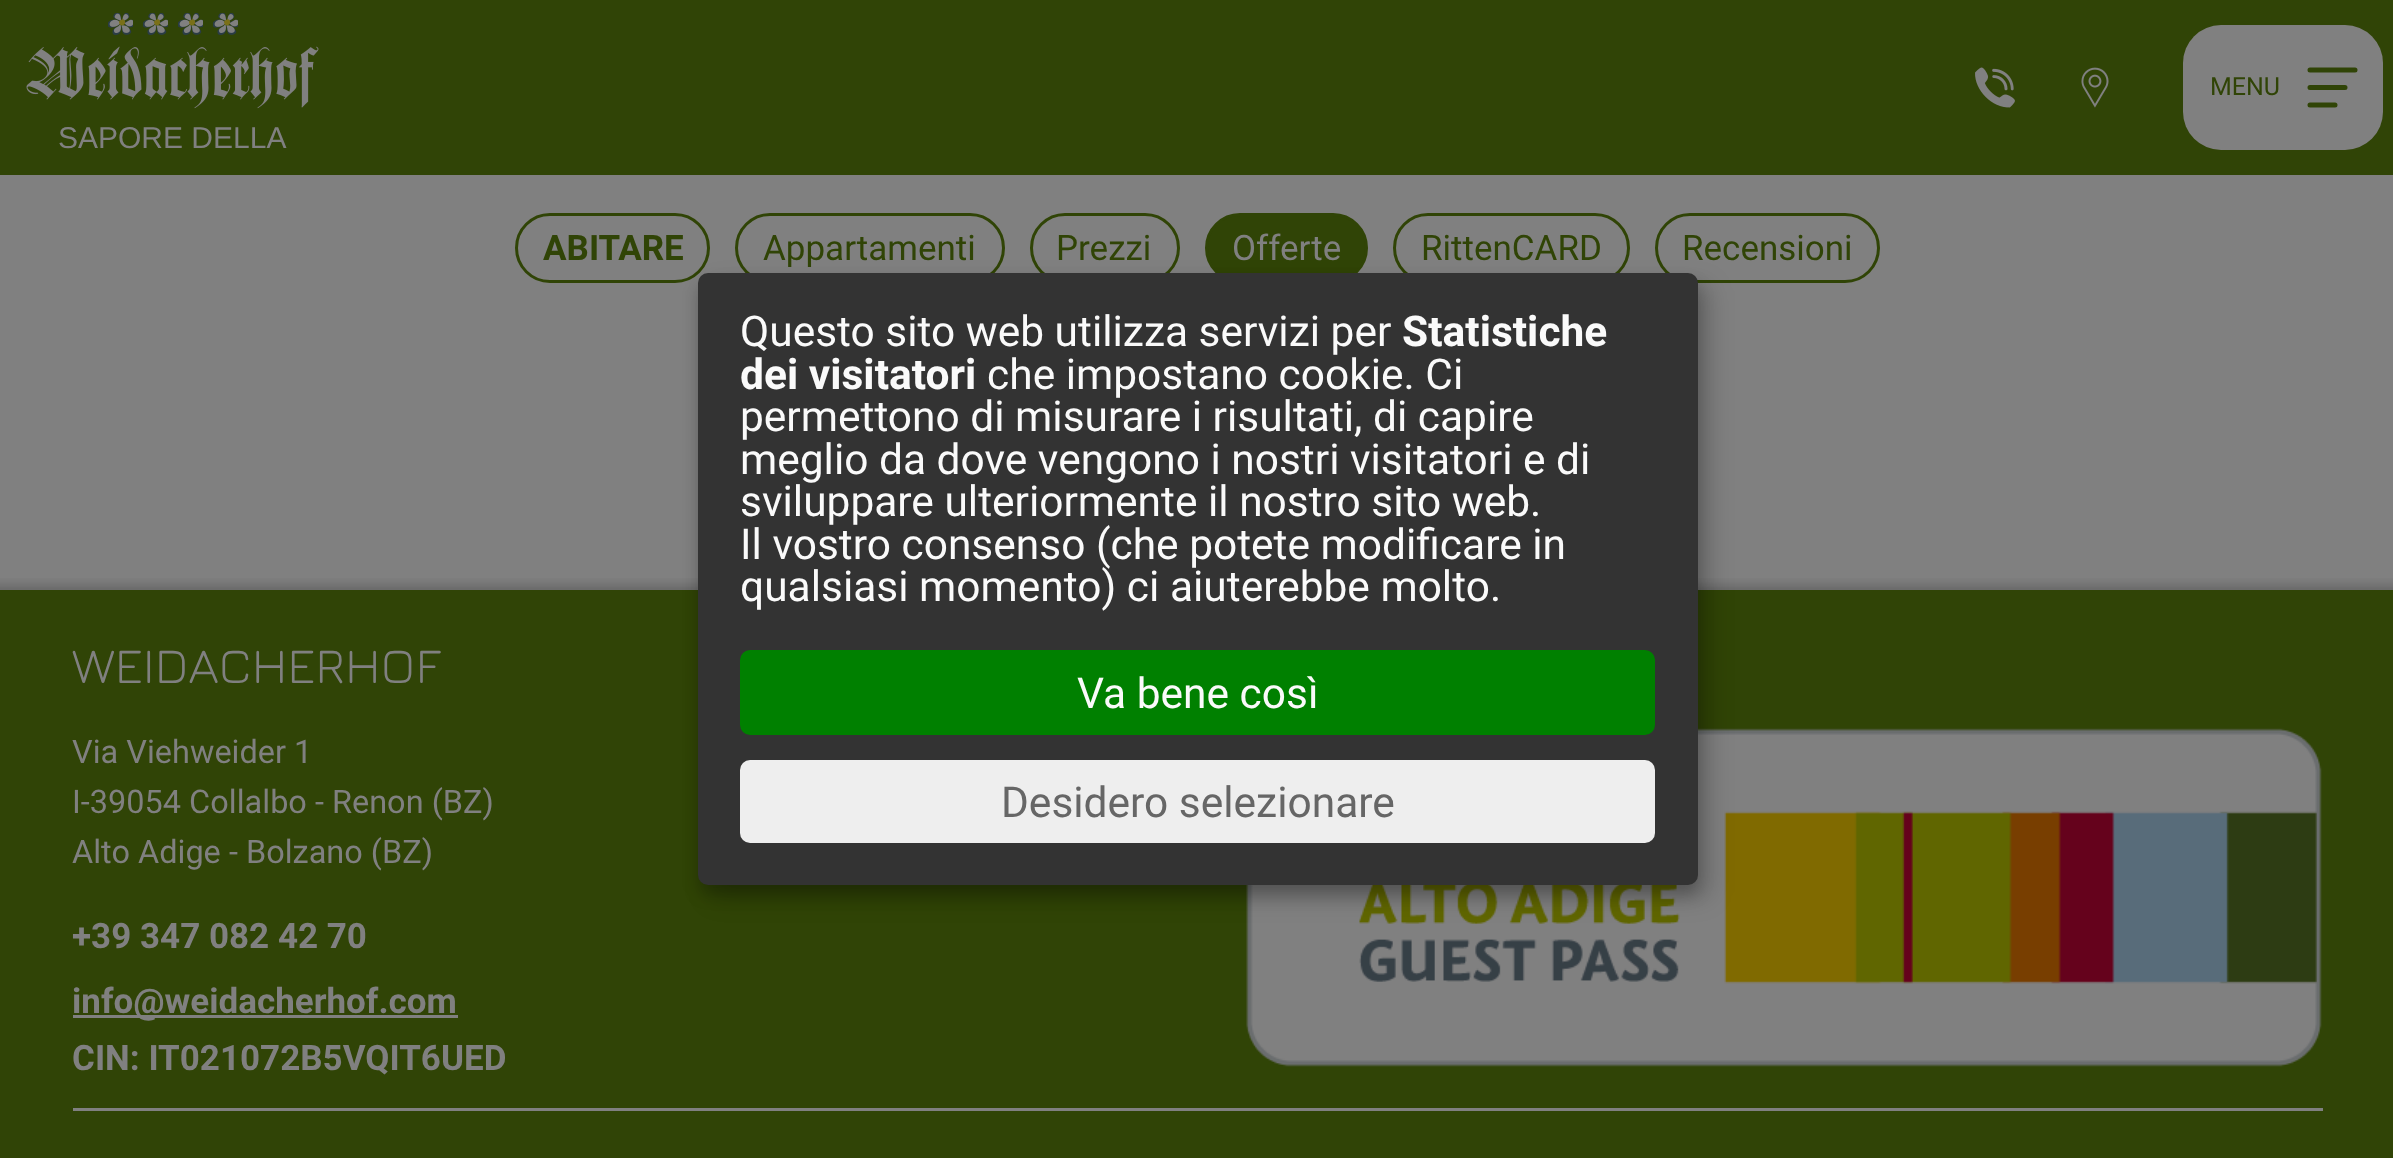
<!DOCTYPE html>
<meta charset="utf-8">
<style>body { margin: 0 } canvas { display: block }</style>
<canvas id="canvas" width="2393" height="1158"></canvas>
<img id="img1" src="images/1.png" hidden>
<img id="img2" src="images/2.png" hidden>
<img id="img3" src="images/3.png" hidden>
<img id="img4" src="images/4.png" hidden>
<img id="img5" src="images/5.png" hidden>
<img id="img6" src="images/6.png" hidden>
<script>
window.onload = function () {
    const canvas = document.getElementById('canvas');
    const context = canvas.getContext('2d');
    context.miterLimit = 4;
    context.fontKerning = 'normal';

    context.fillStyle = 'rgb(128, 128, 128)';
    context.fillRect(0, 0, 2393, 1158);
    context.fillStyle = 'rgb(48, 68, 6)';
    context.fillRect(0, 0, 2393, 175);
    context.drawImage(document.getElementById('img1'), 1975, 67, 40, 41);
    context.drawImage(document.getElementById('img2'), 2081, 67, 28, 41);
    context.fillStyle = 'rgb(128, 128, 128)';
    context.beginPath();
    context.roundRect(2183, 25, 200, 125, 38);
    context.fill();
    context.beginPath();
    context.moveTo(2310, 70);
    context.lineTo(2355, 70);
    context.moveTo(2310, 87.5);
    context.lineTo(2345, 87.5);
    context.moveTo(2310, 105);
    context.lineTo(2335, 105);
    context.strokeStyle = 'rgb(48, 68, 6)';
    context.lineWidth = 5;
    context.lineCap = 'round';
    context.stroke();
    context.drawImage(document.getElementById('img3'), 108, 13, 25, 22);
    context.drawImage(document.getElementById('img3'), 143, 13, 25, 22);
    context.drawImage(document.getElementById('img3'), 178, 13, 25, 22);
    context.drawImage(document.getElementById('img3'), 213, 13, 25, 22);
    context.drawImage(document.getElementById('img4'), 26, 46, 293, 63);
    context.drawImage(document.getElementById('img5'), 0, 578, 2393, 12);
    context.beginPath();
    context.roundRect(516.5, 214.5, 192, 67, 33.5);
    context.lineWidth = 3;
    context.stroke();
    context.beginPath();
    context.roundRect(736.5, 214.5, 267, 67, 33.5);
    context.stroke();
    context.beginPath();
    context.roundRect(1031.5, 214.5, 147, 67, 33.5);
    context.stroke();
    context.fillStyle = 'rgb(48, 68, 6)';
    context.beginPath();
    context.roundRect(1206.5, 214.5, 160, 67, 33.5);
    context.fill();
    context.stroke();
    context.beginPath();
    context.roundRect(1394.5, 214.5, 234, 67, 33.5);
    context.stroke();
    context.beginPath();
    context.roundRect(1656.5, 214.5, 222, 67, 33.5);
    context.stroke();
    context.fillRect(0, 590, 2393, 568);
    context.fillStyle = 'rgb(128, 128, 128)';
    context.fillRect(73, 1108, 2250, 3);
    context.fillRect(73, 1015, 385, 3);
    context.drawImage(document.getElementById('img6'), 1246, 728, 1076, 339);
    context.fillStyle = 'rgba(0, 0, 0, 0.19)';
    context.filter = 'blur(12.5px)';
    context.beginPath();
    context.roundRect(710, 285, 1000, 613, 10);
    context.fill();
    context.filter = 'none';
    context.fillStyle = 'rgba(0, 0, 0, 0.2)';
    context.filter = 'blur(7.5px)';
    context.beginPath();
    context.roundRect(698, 283, 1000, 612, 10);
    context.fill();
    context.filter = 'none';
    context.fillStyle = 'rgb(51, 51, 51)';
    context.beginPath();
    context.roundRect(698, 273, 1000, 612, 10);
    context.fill();
    context.fillStyle = 'rgb(0, 128, 0)';
    context.beginPath();
    context.roundRect(740, 650, 915, 85, 10);
    context.fill();
    context.fillStyle = 'rgb(238, 238, 238)';
    context.beginPath();
    context.roundRect(740, 760, 915, 83, 10);
    context.fill();
    context.font = '25px Roboto';
    context.fillStyle = 'rgb(48, 68, 6)';
    context.fillText('MENU', 2210, 95);
    context.font = '30px Liberation Sans';
    context.fillStyle = 'rgb(128, 128, 128)';
    context.fillText('SAPORE DELLA', 58, 148);
    context.font = 'bold 35px Roboto';
    context.fillStyle = 'rgb(48, 68, 6)';
    context.fillText('ABITARE', 543, 260);
    context.font = '35px Roboto';
    context.fillText('Appartamenti', 763, 260);
    context.fillText('Prezzi', 1056, 260);
    context.fillStyle = 'rgb(128, 128, 128)';
    context.fillText('Offerte', 1232, 260);
    context.fillStyle = 'rgb(48, 68, 6)';
    context.fillText('RittenCARD', 1421, 260);
    context.fillText('Recensioni', 1682, 260);
    context.font = '50px Jura';
    context.fillStyle = 'rgb(128, 128, 128)';
    context.fillText('WEIDACHERHOF', 72, 683);
    context.font = '32.5px Roboto';
    context.fillText('Via Viehweider 1', 72, 763);
    context.fillText('I-39054 Collalbo - Renon (BZ)', 72, 813);
    context.fillText('Alto Adige - Bolzano (BZ)', 72, 863);
    context.font = 'bold 35px Roboto';
    context.fillText('+39 347 082 42 70', 72, 948);
    context.fillText('info@weidacherhof.com', 72, 1013);
    context.fillText('CIN: IT021072B5VQIT6UED', 72, 1070);
    context.font = '42.5px Roboto';
    context.fillStyle = 'rgb(250, 250, 250)';
    context.fillText('Questo sito web utilizza servizi per', 740, 346);
    context.font = 'bold 42.5px Roboto';
    context.fillText('Statistiche', 1402, 346);
    context.fillText('dei visitatori', 740, 389);
    context.font = '42.5px Roboto';
    context.fillText('che impostano cookie. Ci', 987, 389);
    context.fillText('permettono di misurare i risultati, di capire', 740, 431);
    context.fillText('meglio da dove vengono i nostri visitatori e di', 740, 474);
    context.fillText('sviluppare ulteriormente il nostro sito web.', 740, 516);
    context.fillText('Il vostro consenso (che potete modificare in', 740, 559);
    context.fillText('qualsiasi momento) ci aiuterebbe molto.', 740, 601);
    context.fillText('Va bene così', 1077, 708);
    context.fillStyle = 'rgb(102, 102, 102)';
    context.fillText('Desidero selezionare', 1001, 817);
};
</script>
